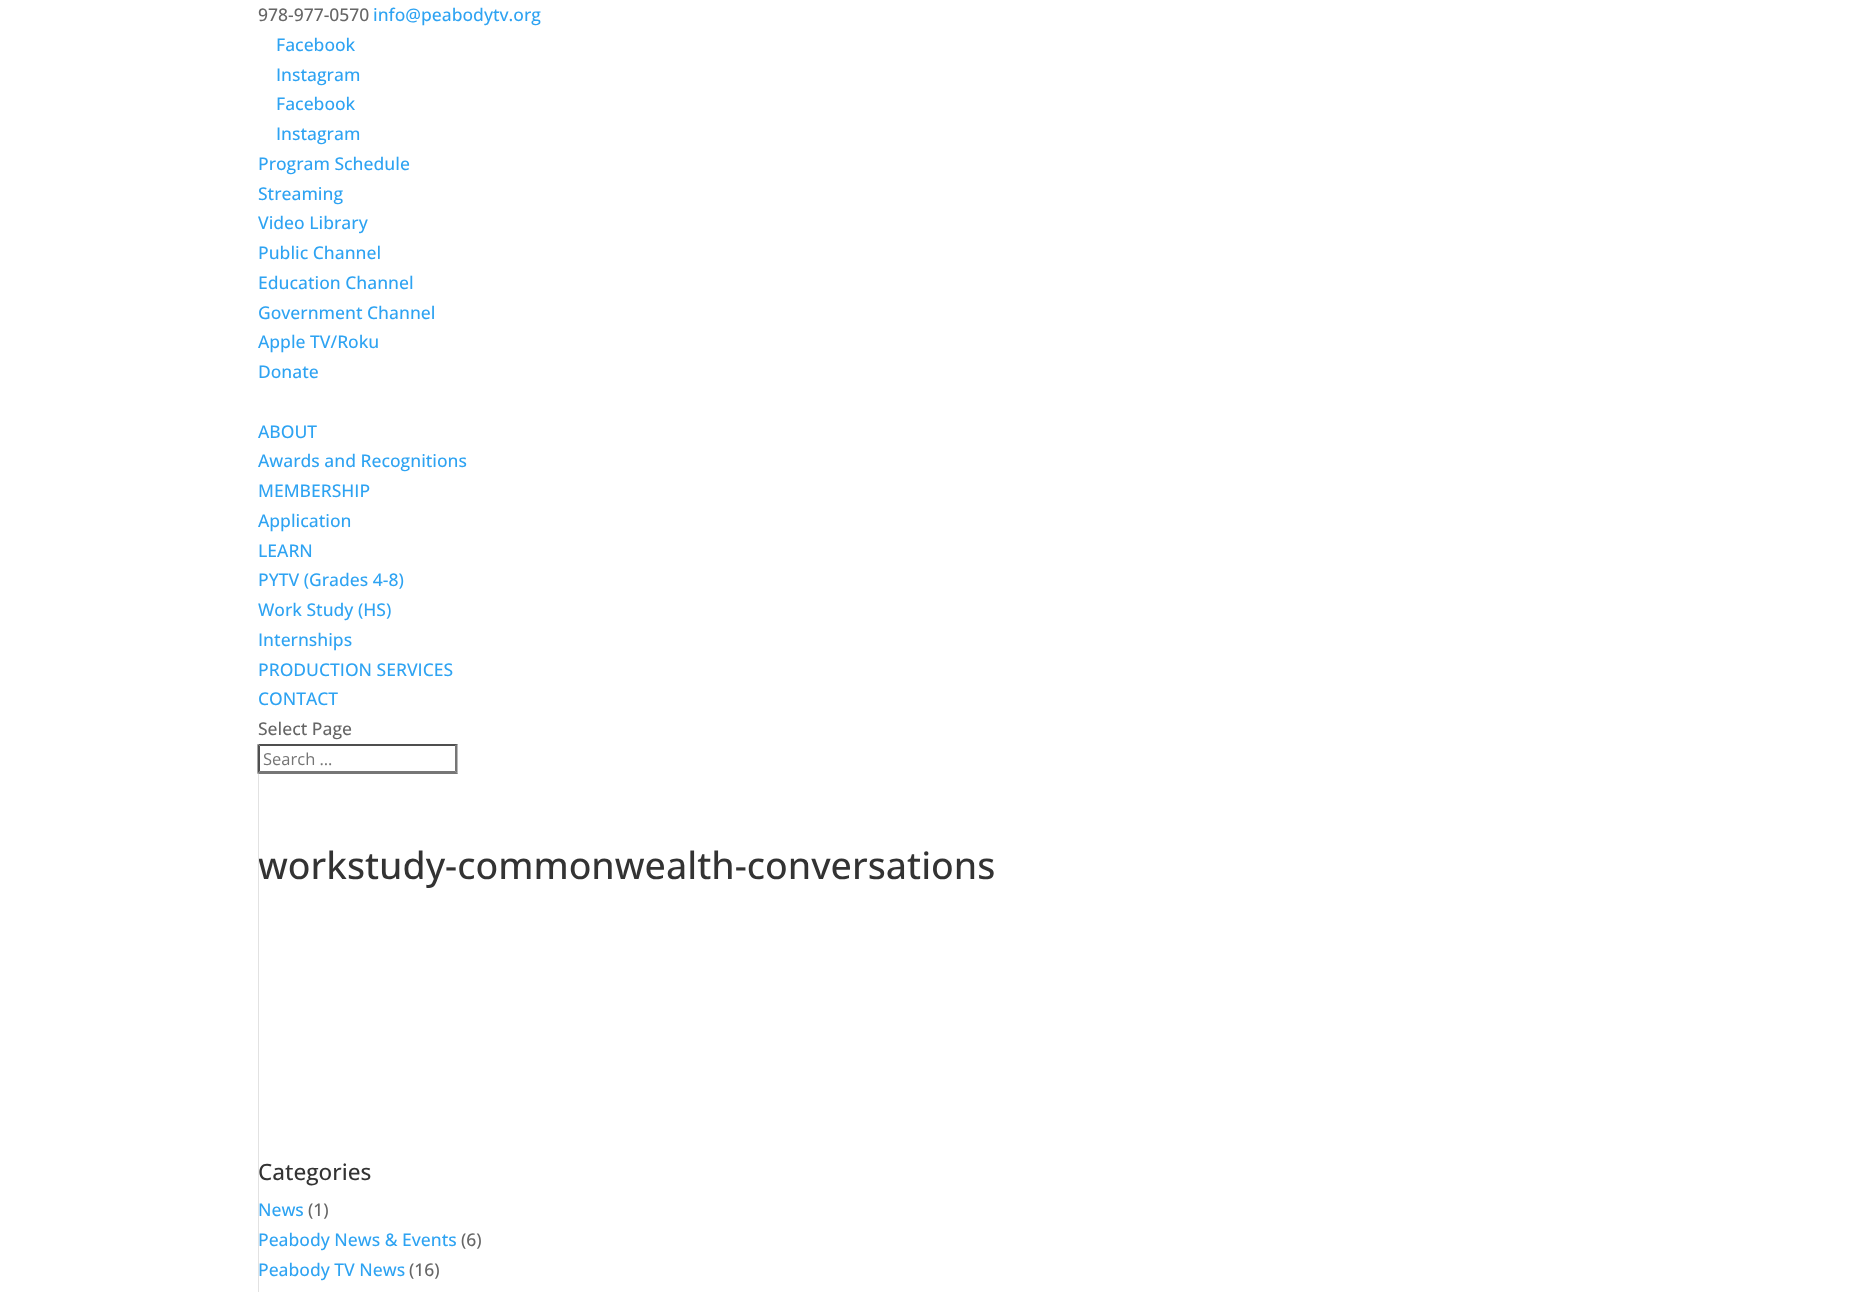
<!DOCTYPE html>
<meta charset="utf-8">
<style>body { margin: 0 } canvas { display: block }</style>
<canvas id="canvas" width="1865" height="1292"></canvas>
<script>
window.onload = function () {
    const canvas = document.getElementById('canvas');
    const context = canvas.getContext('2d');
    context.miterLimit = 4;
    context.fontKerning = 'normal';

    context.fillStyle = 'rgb(255, 255, 255)';
    context.fillRect(0, 0, 1865, 1292);
    context.fillStyle = 'rgb(79, 79, 79)';
    context.beginPath();
    context.moveTo(258, 744);
    context.lineTo(458, 744);
    context.lineTo(455, 746);
    context.lineTo(260, 746);
    context.closePath();
    context.fill();
    context.fillStyle = 'rgb(118, 118, 118)';
    context.beginPath();
    context.moveTo(457.5, 744);
    context.lineTo(457.5, 774);
    context.lineTo(455, 771);
    context.lineTo(455, 746);
    context.closePath();
    context.fill();
    context.beginPath();
    context.moveTo(458, 774);
    context.lineTo(258, 774);
    context.lineTo(260, 771);
    context.lineTo(455, 771);
    context.closePath();
    context.fill();
    context.fillStyle = 'rgb(79, 79, 79)';
    context.beginPath();
    context.moveTo(257.5, 774);
    context.lineTo(257.5, 744);
    context.lineTo(260, 746);
    context.lineTo(260, 771);
    context.closePath();
    context.fill();
    context.font = '500 17.5px Open Sans';
    context.fillStyle = 'rgb(102, 102, 102)';
    context.fillText('978-977-0570', 258, 21);
    context.fillStyle = 'rgb(46, 163, 242)';
    context.fillText('info@peabodytv.org', 373, 21);
    context.fillText('Facebook', 276, 51);
    context.fillText('Instagram', 276, 81);
    context.fillText('Facebook', 276, 110);
    context.fillText('Instagram', 276, 140);
    context.fillText('Program Schedule', 258, 170);
    context.fillText('Streaming', 258, 200);
    context.fillText('Video Library', 258, 229);
    context.fillText('Public Channel', 258, 259);
    context.fillText('Education Channel', 258, 289);
    context.fillText('Government Channel', 258, 319);
    context.fillText('Apple TV/Roku', 258, 348);
    context.fillText('Donate', 258, 378);
    context.fillText('ABOUT', 258, 438);
    context.fillText('Awards and Recognitions', 258, 467);
    context.fillText('MEMBERSHIP', 258, 497);
    context.fillText('Application', 258, 527);
    context.fillText('LEARN', 258, 557);
    context.fillText('PYTV (Grades 4-8)', 258, 586);
    context.fillText('Work Study (HS)', 258, 616);
    context.fillText('Internships', 258, 646);
    context.fillText('PRODUCTION SERVICES', 258, 676);
    context.fillText('CONTACT', 258, 705);
    context.fillStyle = 'rgb(102, 102, 102)';
    context.fillText('Select Page', 258, 735);
    context.font = '16.5px Open Sans';
    context.fillStyle = 'rgb(117, 117, 117)';
    context.fillText('Search …', 263, 765);
    context.font = '500 37.5px Open Sans';
    context.fillStyle = 'rgb(51, 51, 51)';
    context.fillText('workstudy-commonwealth-conversations', 258, 879);
    context.font = '500 22.5px Open Sans';
    context.fillText('Categories', 258, 1180);
    context.fillStyle = 'rgb(226, 226, 226)';
    context.fillRect(258, 774, 1, 518);
    context.font = '500 17.5px Open Sans';
    context.fillStyle = 'rgb(46, 163, 242)';
    context.fillText('News', 258, 1216);
    context.fillStyle = 'rgb(102, 102, 102)';
    context.fillText('(1)', 308, 1216);
    context.fillStyle = 'rgb(46, 163, 242)';
    context.fillText('Peabody News & Events', 258, 1246);
    context.fillStyle = 'rgb(102, 102, 102)';
    context.fillText('(6)', 461, 1246);
    context.fillStyle = 'rgb(46, 163, 242)';
    context.fillText('Peabody TV News', 258, 1276);
    context.fillStyle = 'rgb(102, 102, 102)';
    context.fillText('(16)', 409, 1276);
};
</script>
